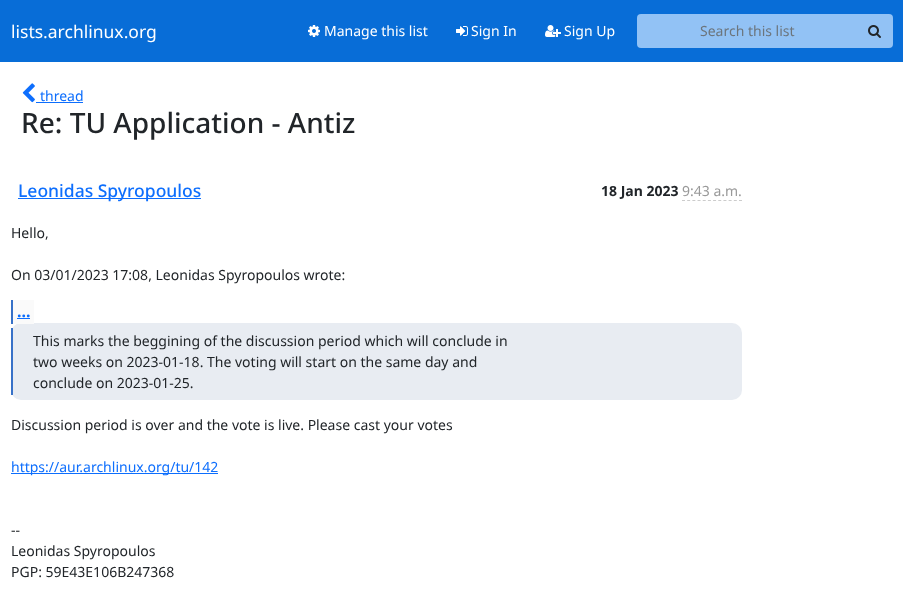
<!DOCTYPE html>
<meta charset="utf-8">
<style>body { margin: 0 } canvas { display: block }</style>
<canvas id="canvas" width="903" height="598"></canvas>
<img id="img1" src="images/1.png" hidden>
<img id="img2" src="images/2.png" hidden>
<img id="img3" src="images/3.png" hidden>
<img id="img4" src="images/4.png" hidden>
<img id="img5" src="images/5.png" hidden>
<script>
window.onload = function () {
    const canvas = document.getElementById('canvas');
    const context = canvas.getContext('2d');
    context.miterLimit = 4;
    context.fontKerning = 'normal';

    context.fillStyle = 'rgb(255, 255, 255)';
    context.fillRect(0, 0, 903, 598);
    context.fillStyle = 'rgb(8, 109, 215)';
    context.fillRect(0, 0, 903, 62);
    context.drawImage(document.getElementById('img1'), 308, 25, 12, 12);
    context.drawImage(document.getElementById('img2'), 456, 26, 12, 10);
    context.drawImage(document.getElementById('img3'), 545, 25, 16, 12);
    context.fillStyle = 'rgb(146, 194, 245)';
    context.beginPath();
    context.roundRect(637, 14, 221, 34, [4, 0, 0, 4]);
    context.fill();
    context.beginPath();
    context.roundRect(857, 14, 36, 34, [0, 4, 4, 0]);
    context.fill();
    context.drawImage(document.getElementById('img4'), 868, 25, 13, 13);
    context.drawImage(document.getElementById('img5'), 22, 83, 13, 20);
    context.fillStyle = 'rgb(13, 110, 253)';
    context.fillRect(36, 102, 47, 1);
    context.fillRect(18, 198, 183, 1);
    context.beginPath();
    context.moveTo(682, 200.5);
    context.lineTo(742, 200.5);
    context.strokeStyle = 'rgb(204, 204, 204)';
    context.setLineDash([3, 2.18]);
    context.stroke();
    context.fillStyle = 'rgb(232, 236, 242)';
    context.beginPath();
    context.roundRect(11, 323, 731, 77, 10);
    context.fill();
    context.fillStyle = 'rgb(250, 250, 250)';
    context.fillRect(13, 300, 21, 24);
    context.fillStyle = 'rgb(55, 113, 200)';
    context.fillRect(11, 300, 2, 24);
    context.fillStyle = 'rgb(13, 110, 253)';
    context.fillRect(17, 318, 13, 1);
    context.fillStyle = 'rgb(55, 113, 200)';
    context.fillRect(11, 328, 2, 67);
    context.fillStyle = 'rgb(13, 110, 253)';
    context.fillRect(11, 473, 207, 1);
    context.font = '17.5px Noto Sans';
    context.fillStyle = 'rgb(255, 255, 255)';
    context.fillText('lists.archlinux.org', 11, 38);
    context.font = '14px Noto Sans';
    context.fillText('Manage this list', 324, 36);
    context.fillText('Sign In', 471, 36);
    context.fillText('Sign Up', 564, 36);
    context.fillStyle = 'rgb(108, 117, 125)';
    context.fillText('Search this list', 700, 36);
    context.fillStyle = 'rgb(13, 110, 253)';
    context.fillText('thread', 40, 101);
    context.font = '500 28px Noto Sans';
    context.fillStyle = 'rgb(33, 37, 41)';
    context.fillText('Re: TU Application - Antiz', 21, 133);
    context.font = '500 17.5px Noto Sans';
    context.fillStyle = 'rgb(13, 110, 253)';
    context.fillText('Leonidas Spyropoulos', 18, 197);
    context.font = 'bold 14px Noto Sans';
    context.fillStyle = 'rgb(33, 37, 41)';
    context.fillText('18 Jan 2023', 601, 196);
    context.font = '14px Noto Sans';
    context.fillStyle = 'rgb(153, 153, 153)';
    context.fillText('9:43 a.m.', 682, 196);
    context.fillStyle = 'rgb(33, 37, 41)';
    context.fillText('Hello,', 11, 238);
    context.fillText('On 03/01/2023 17:08, Leonidas Spyropoulos wrote:', 11, 280);
    context.font = 'bold 16px Noto Sans';
    context.fillStyle = 'rgb(13, 110, 253)';
    context.fillText('...', 17, 317);
    context.font = '14px Noto Sans';
    context.fillStyle = 'rgb(33, 37, 41)';
    context.fillText('This marks the beggining of the discussion period which will conclude in', 33, 346);
    context.fillText('two weeks on 2023-01-18. The voting will start on the same day and', 33, 367);
    context.fillText('conclude on 2023-01-25.', 33, 388);
    context.fillText('Discussion period is over and the vote is live. Please cast your votes', 11, 430);
    context.fillStyle = 'rgb(13, 110, 253)';
    context.fillText('https://aur.archlinux.org/tu/142', 11, 472);
    context.fillStyle = 'rgb(33, 37, 41)';
    context.fillText('--', 11, 535);
    context.fillText('Leonidas Spyropoulos', 11, 556);
    context.fillText('PGP: 59E43E106B247368', 11, 577);
};
</script>
